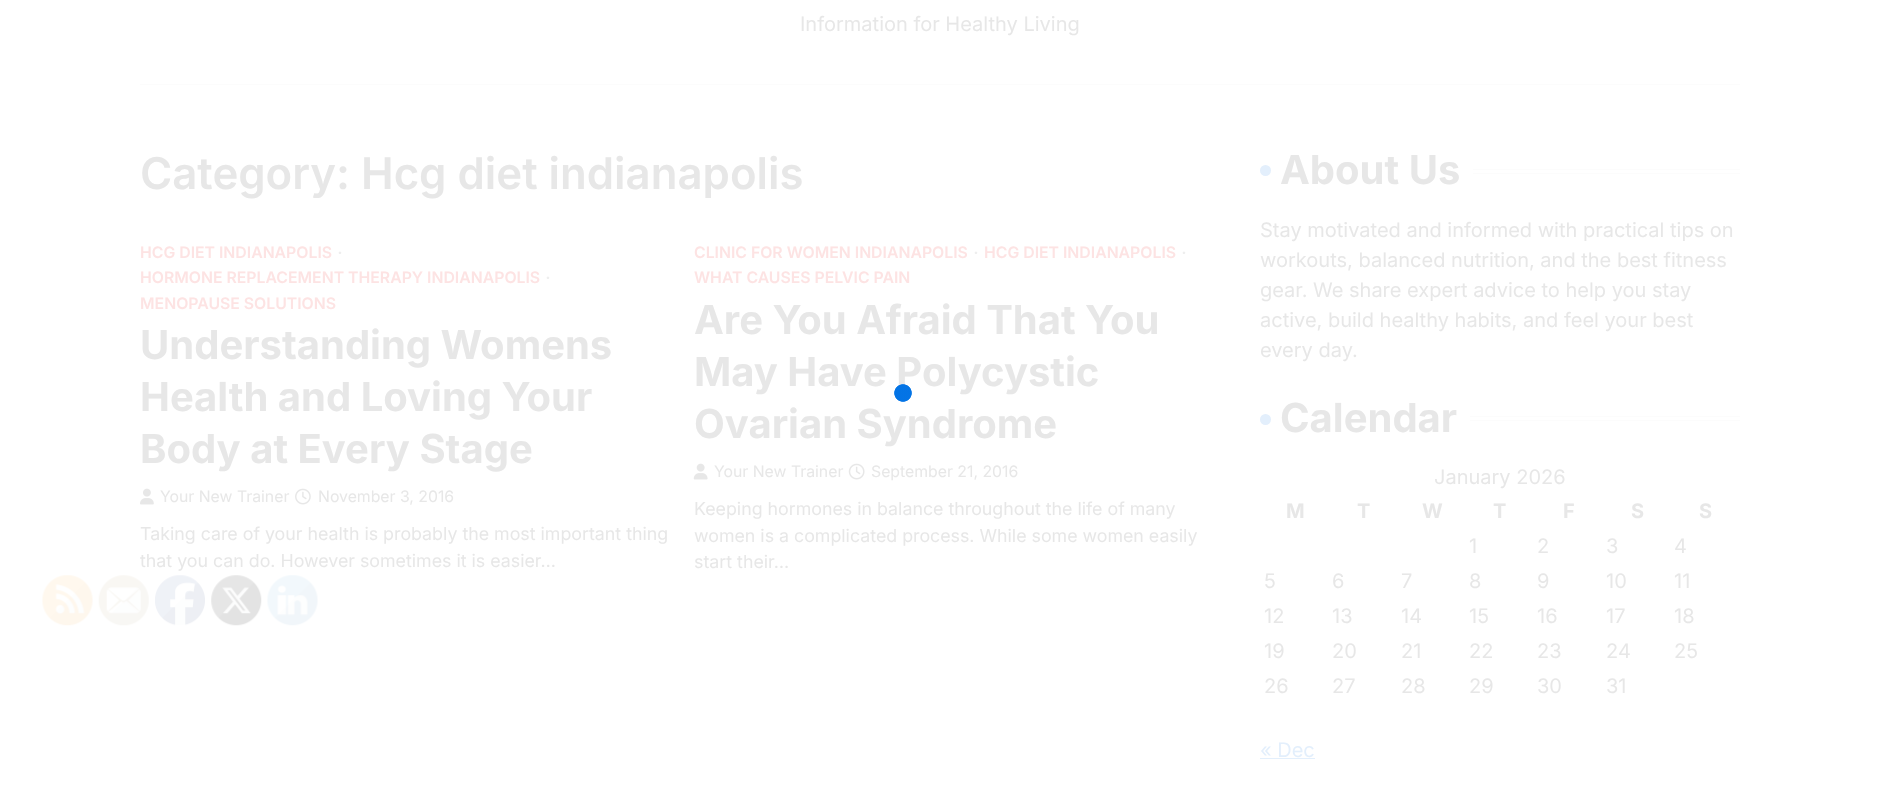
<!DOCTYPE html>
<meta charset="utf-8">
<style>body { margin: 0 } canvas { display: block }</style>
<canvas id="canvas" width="1880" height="804"></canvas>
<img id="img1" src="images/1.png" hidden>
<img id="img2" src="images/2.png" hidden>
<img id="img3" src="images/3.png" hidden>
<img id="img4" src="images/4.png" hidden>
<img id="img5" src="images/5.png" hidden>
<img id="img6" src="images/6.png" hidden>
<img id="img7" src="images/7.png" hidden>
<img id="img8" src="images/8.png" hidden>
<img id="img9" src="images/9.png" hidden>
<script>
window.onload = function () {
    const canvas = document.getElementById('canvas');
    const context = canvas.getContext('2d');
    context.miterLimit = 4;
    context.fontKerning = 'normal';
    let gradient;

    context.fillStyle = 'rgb(255, 255, 255)';
    context.fillRect(0, 0, 1880, 804);
    context.fillStyle = 'rgb(252, 252, 252)';
    context.fillRect(140, 84, 1600, 1);
    context.drawImage(document.getElementById('img1'), 140, 488, 14, 17);
    context.drawImage(document.getElementById('img2'), 295, 488, 16, 17);
    context.drawImage(document.getElementById('img3'), 693, 463, 15, 17);
    context.drawImage(document.getElementById('img4'), 848, 463, 17, 17);
    context.fillStyle = 'rgb(227, 239, 252)';
    context.beginPath();
    context.arc(1265.5, 170.5, 5.5, 0, 2 * Math.PI);
    context.fill();
    context.fillStyle = 'rgb(252, 252, 252)';
    context.fillRect(1473, 169, 267, 1);
    context.fillRect(1473, 173, 267, 1);
    context.fillStyle = 'rgb(227, 239, 252)';
    context.beginPath();
    context.arc(1265.5, 419.5, 5.5, 0, 2 * Math.PI);
    context.fill();
    context.fillStyle = 'rgb(252, 252, 252)';
    context.fillRect(1470, 416, 270, 1);
    context.fillRect(1470, 420, 270, 1);
    context.fillStyle = 'rgb(227, 239, 252)';
    context.fillRect(1260, 758, 55, 1);
    context.drawImage(document.getElementById('img5'), 42, 575, 51, 51);
    context.drawImage(document.getElementById('img6'), 98, 575, 51, 51);
    context.drawImage(document.getElementById('img7'), 155, 575, 50, 51);
    context.drawImage(document.getElementById('img8'), 211, 575, 51, 51);
    context.drawImage(document.getElementById('img9'), 267, 575, 51, 51);
    context.font = '20px Inter';
    context.fillStyle = 'rgb(231, 231, 231)';
    context.fillText('Information for Healthy Living', 800, 31);
    context.font = '600 43.75px Inter';
    context.fillText('Category: Hcg diet indianapolis', 140, 189);
    context.font = '600 15.8px Inter';
    context.fillStyle = 'rgb(253, 227, 227)';
    context.fillText('HCG DIET INDIANAPOLIS', 140, 258);
    context.font = 'bold 15.8px Liberation Serif';
    context.fillStyle = 'rgb(238, 238, 238)';
    context.fillText('∙', 338, 258);
    context.font = '600 15.8px Inter';
    context.fillStyle = 'rgb(253, 227, 227)';
    context.fillText('HORMONE REPLACEMENT THERAPY INDIANAPOLIS', 140, 283);
    context.font = 'bold 15.8px Liberation Serif';
    context.fillStyle = 'rgb(238, 238, 238)';
    context.fillText('∙', 546, 283);
    context.font = '600 15.8px Inter';
    context.fillStyle = 'rgb(253, 227, 227)';
    context.fillText('MENOPAUSE SOLUTIONS', 140, 309);
    context.font = 'bold 40px Inter';
    context.fillStyle = 'rgb(231, 231, 231)';
    context.fillText('Understanding Womens', 140, 359);
    context.fillText('Health and Loving Your', 140, 411);
    context.fillText('Body at Every Stage', 140, 463);
    context.font = '15.8px Inter';
    context.fillText('Your New Trainer', 160, 502);
    context.fillText('November 3, 2016', 318, 502);
    context.font = '17.8px Inter';
    context.fillText('Taking care of your health is probably the most important thing', 140, 540);
    context.fillText('that you can do. However sometimes it is easier…', 140, 567);
    context.font = '600 15.8px Inter';
    context.fillStyle = 'rgb(253, 227, 227)';
    context.fillText('CLINIC FOR WOMEN INDIANAPOLIS', 694, 258);
    context.font = 'bold 15.8px Liberation Serif';
    context.fillStyle = 'rgb(238, 238, 238)';
    context.fillText('∙', 974, 258);
    context.font = '600 15.8px Inter';
    context.fillStyle = 'rgb(253, 227, 227)';
    context.fillText('HCG DIET INDIANAPOLIS', 984, 258);
    context.font = 'bold 15.8px Liberation Serif';
    context.fillStyle = 'rgb(238, 238, 238)';
    context.fillText('∙', 1182, 258);
    context.font = '600 15.8px Inter';
    context.fillStyle = 'rgb(253, 227, 227)';
    context.fillText('WHAT CAUSES PELVIC PAIN', 694, 283);
    context.font = 'bold 40px Inter';
    context.fillStyle = 'rgb(231, 231, 231)';
    context.fillText('Are You Afraid That You', 694, 334);
    context.fillText('May Have Polycystic', 694, 386);
    context.fillText('Ovarian Syndrome', 694, 438);
    context.font = '15.8px Inter';
    context.fillText('Your New Trainer', 714, 477);
    context.fillText('September 21, 2016', 871, 477);
    context.font = '17.8px Inter';
    context.fillText('Keeping hormones in balance throughout the life of many', 694, 515);
    context.fillText('women is a complicated process. While some women easily', 694, 542);
    context.fillText('start their…', 694, 568);
    context.font = 'bold 40px Inter';
    context.fillText('About Us', 1280, 184);
    context.font = '20px Inter';
    context.fillText('Stay motivated and informed with practical tips on', 1260, 237);
    context.fillText('workouts, balanced nutrition, and the best fitness', 1260, 267);
    context.fillText('gear. We share expert advice to help you stay', 1260, 297);
    context.fillText('active, build healthy habits, and feel your best', 1260, 327);
    context.fillText('every day.', 1260, 357);
    context.font = 'bold 40px Inter';
    context.fillText('Calendar', 1280, 432);
    context.font = '20px Inter';
    context.fillText('January 2026', 1434, 484);
    context.font = 'bold 20px Inter';
    context.fillText('M', 1286, 518);
    context.fillText('T', 1357, 518);
    context.fillText('W', 1422, 518);
    context.fillText('T', 1493, 518);
    context.fillText('F', 1563, 518);
    context.fillText('S', 1631, 518);
    context.fillText('S', 1699, 518);
    context.font = '20px Inter';
    context.fillText('1', 1469, 553);
    context.fillText('2', 1537, 553);
    context.fillText('3', 1606, 553);
    context.fillText('4', 1674, 553);
    context.fillText('5', 1264, 588);
    context.fillText('6', 1332, 588);
    context.fillText('7', 1401, 588);
    context.fillText('8', 1469, 588);
    context.fillText('9', 1537, 588);
    context.fillText('10', 1606, 588);
    context.fillText('11', 1674, 588);
    context.fillText('12', 1264, 623);
    context.fillText('13', 1332, 623);
    context.fillText('14', 1401, 623);
    context.fillText('15', 1469, 623);
    context.fillText('16', 1537, 623);
    context.fillText('17', 1606, 623);
    context.fillText('18', 1674, 623);
    context.fillText('19', 1264, 658);
    context.fillText('20', 1332, 658);
    context.fillText('21', 1401, 658);
    context.fillText('22', 1469, 658);
    context.fillText('23', 1537, 658);
    context.fillText('24', 1606, 658);
    context.fillText('25', 1674, 658);
    context.fillText('26', 1264, 693);
    context.fillText('27', 1332, 693);
    context.fillText('28', 1401, 693);
    context.fillText('29', 1469, 693);
    context.fillText('30', 1537, 693);
    context.fillText('31', 1606, 693);
    context.fillStyle = 'rgb(227, 239, 252)';
    context.fillText('« Dec', 1260, 757);
    gradient = context.createRadialGradient(903, 393, 0, 903, 393, 9);
    gradient.addColorStop(0.9, 'rgba(0, 114, 229, 0.67)');
    gradient.addColorStop(1, 'rgba(0, 114, 229, 0)');
    context.fillStyle = gradient;
    context.fillRect(894, 384, 18, 18);
    context.fillRect(894, 384, 18, 18);
    context.fillRect(894, 384, 18, 18);
    context.fillRect(894, 384, 18, 18);
};
</script>
